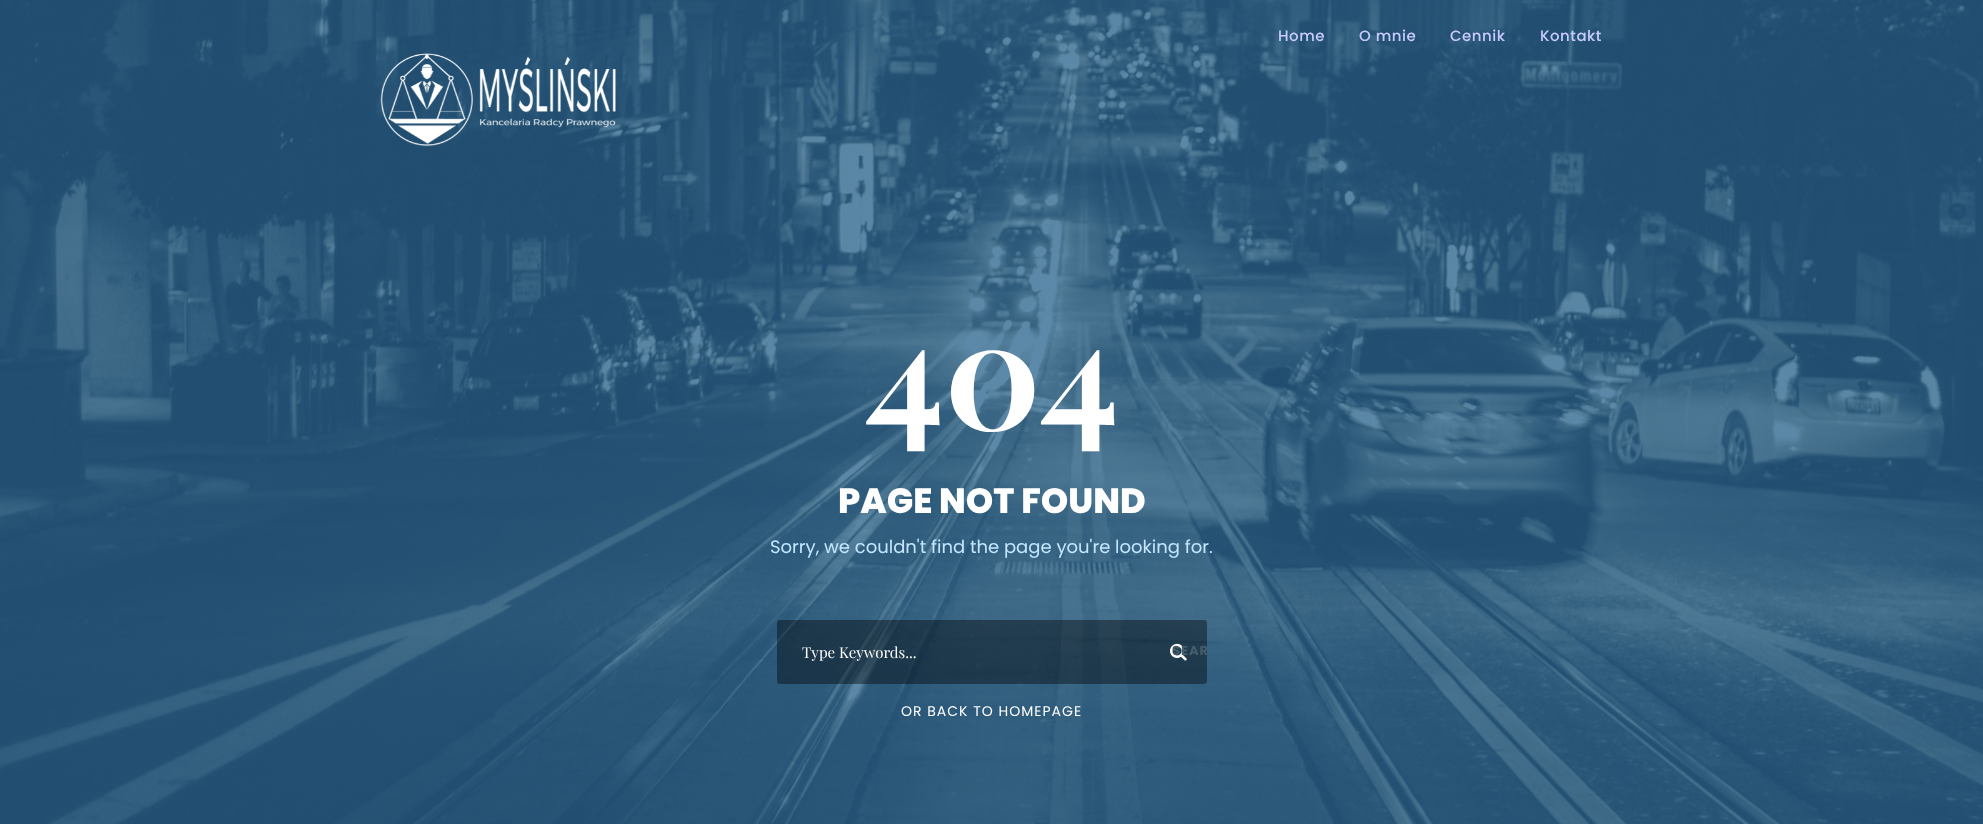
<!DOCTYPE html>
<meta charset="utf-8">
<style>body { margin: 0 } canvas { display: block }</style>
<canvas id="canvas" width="1983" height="824"></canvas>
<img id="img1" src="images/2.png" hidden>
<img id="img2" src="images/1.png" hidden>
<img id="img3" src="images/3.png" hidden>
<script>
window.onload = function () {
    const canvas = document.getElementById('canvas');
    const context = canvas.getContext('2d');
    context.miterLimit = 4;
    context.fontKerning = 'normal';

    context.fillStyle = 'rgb(35, 97, 142)';
    context.fillRect(0, 0, 1983, 824);
    context.drawImage(document.getElementById('img1'), 0, 0, 1983, 824);
    context.drawImage(document.getElementById('img2'), 380, 53, 236, 94);
    context.fillStyle = 'rgba(0, 0, 0, 0.4)';
    context.beginPath();
    context.roundRect(777, 620, 430, 64, 3);
    context.fill();
    context.drawImage(document.getElementById('img3'), 1170, 643, 17, 18);
    context.letterSpacing = '0.5px';
    context.font = '500 15px Poppins';
    context.fillStyle = 'rgb(200, 203, 255)';
    context.fillText('Home', 1278, 41);
    context.fillText('O mnie', 1359, 41);
    context.fillText('Cennik', 1450, 41);
    context.fillText('Kontakt', 1540, 41);
    context.letterSpacing = '0px';
    context.font = 'bold 150px Playfair Display';
    context.fillStyle = 'rgb(255, 255, 255)';
    context.fillText('404', 865, 430);
    context.font = '800 35px Poppins';
    context.fillText('PAGE NOT FOUND', 838, 513);
    context.font = '18px Poppins';
    context.fillStyle = 'rgb(195, 231, 255)';
    context.fillText('Sorry, we couldn\'t find the page you\'re looking for.', 770, 553);
    context.font = '15px Playfair Display';
    context.fillStyle = 'rgb(255, 255, 255)';
    context.fillText('Type Keywords...', 802, 658);
    context.letterSpacing = '1px';
    context.font = 'bold 13px Poppins';
    context.fillStyle = 'rgb(70, 93, 108)';
    context.fillText('SEAR', 1172, 655);
    context.font = '14px Poppins';
    context.fillStyle = 'rgb(255, 255, 255)';
    context.fillText('OR BACK TO HOMEPAGE', 901, 716);
};
</script>
